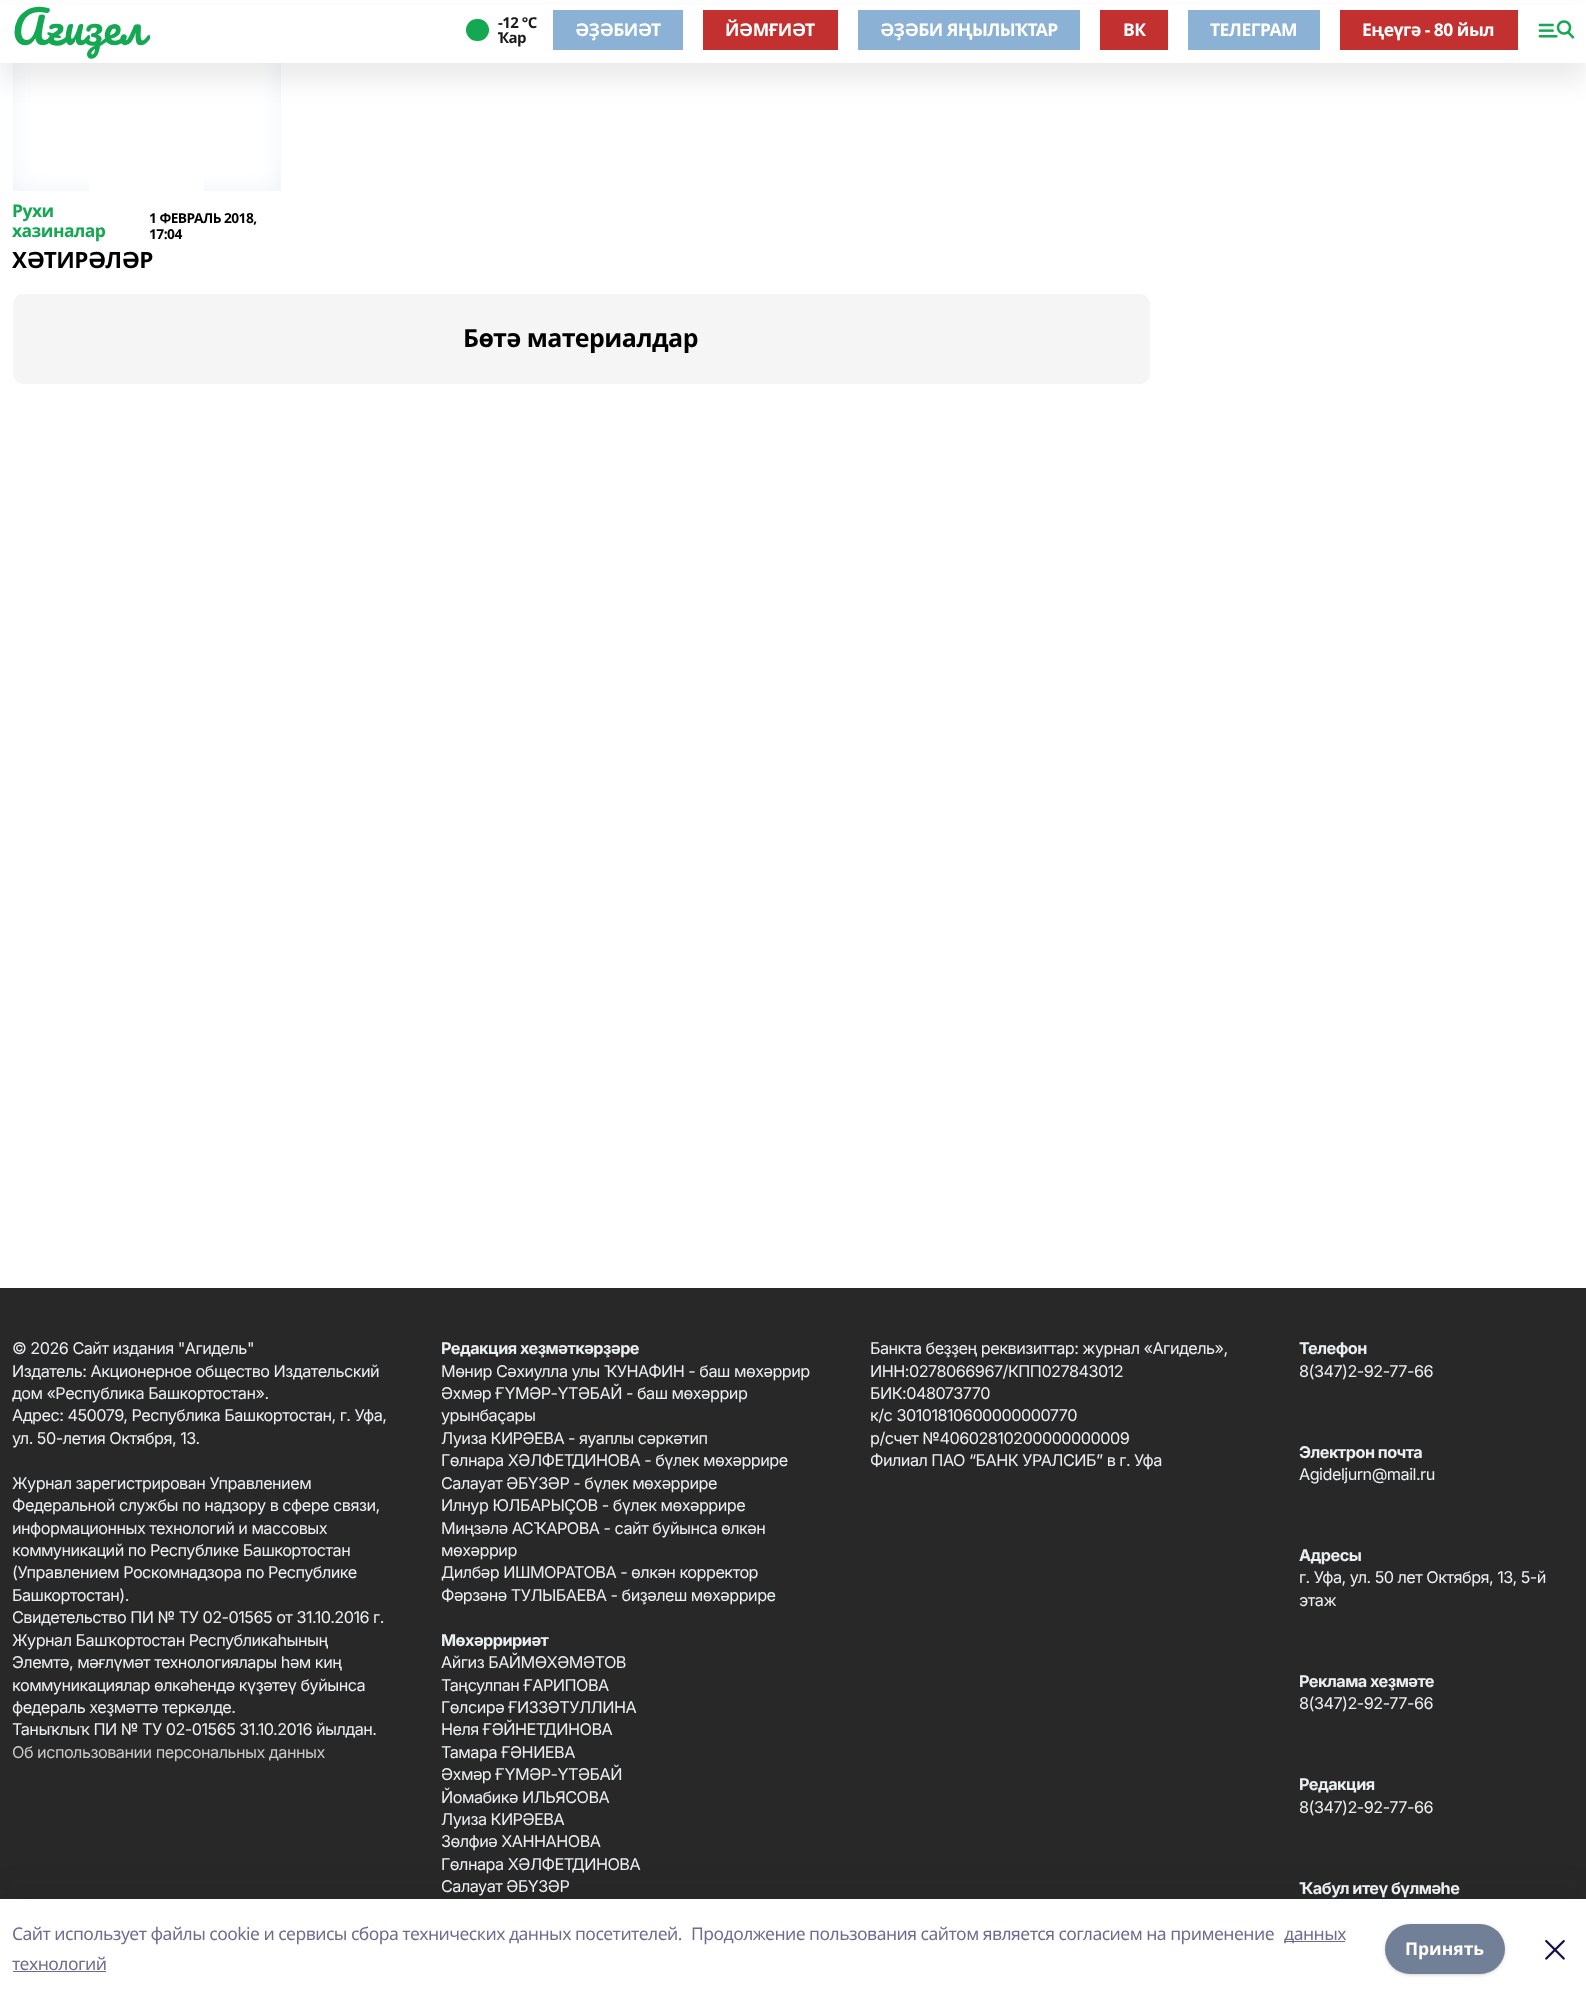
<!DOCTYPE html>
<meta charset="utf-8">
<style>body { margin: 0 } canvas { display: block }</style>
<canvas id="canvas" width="1586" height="1998"></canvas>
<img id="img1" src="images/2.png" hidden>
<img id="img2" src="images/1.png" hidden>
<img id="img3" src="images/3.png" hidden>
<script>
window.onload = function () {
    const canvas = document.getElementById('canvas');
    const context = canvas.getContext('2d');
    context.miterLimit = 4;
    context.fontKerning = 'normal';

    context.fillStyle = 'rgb(255, 255, 255)';
    context.fillRect(0, 0, 1586, 1998);
    context.fillStyle = 'rgb(237, 242, 247)';
    context.fillRect(13, 63, 268, 128);
    context.drawImage(document.getElementById('img1'), 13, 63, 268, 128);
    context.fillStyle = 'rgba(0, 0, 0, 0.08)';
    context.filter = 'blur(12.5px)';
    context.beginPath();
    context.rect(0, 19, 1586, 62);
    context.fill();
    context.filter = 'none';
    context.fillStyle = 'rgb(255, 255, 255)';
    context.fillRect(0, 5, 1586, 58);
    context.fillStyle = 'rgb(20, 168, 82)';
    context.beginPath();
    context.roundRect(466, 19, 23, 22, 11);
    context.fill();
    context.fillStyle = 'rgb(139, 177, 212)';
    context.fillRect(553, 10, 130, 40);
    context.fillStyle = 'rgb(194, 48, 48)';
    context.fillRect(703, 10, 135, 40);
    context.fillStyle = 'rgb(139, 177, 212)';
    context.fillRect(858, 10, 222, 40);
    context.fillStyle = 'rgb(194, 48, 48)';
    context.fillRect(1100, 10, 68, 40);
    context.fillStyle = 'rgb(139, 177, 212)';
    context.fillRect(1188, 10, 132, 40);
    context.fillStyle = 'rgb(194, 48, 48)';
    context.fillRect(1340, 10, 178, 40);
    context.drawImage(document.getElementById('img2'), 1538, 20, 37, 19);
    context.fillStyle = 'rgb(255, 255, 255)';
    context.fillRect(89, 178, 115, 13);
    context.fillStyle = 'rgb(245, 245, 245)';
    context.beginPath();
    context.roundRect(13, 294, 1137, 90, 10);
    context.fill();
    context.fillStyle = 'rgb(40, 40, 40)';
    context.fillRect(0, 1288, 1586, 611);
    context.fillStyle = 'rgba(20, 20, 43, 0.08)';
    context.filter = 'blur(14.5px)';
    context.beginPath();
    context.rect(0, 1891, 1586, 100);
    context.fill();
    context.filter = 'none';
    context.fillStyle = 'rgb(255, 255, 255)';
    context.fillRect(0, 1899, 1586, 99);
    context.fillStyle = 'rgb(111, 108, 144)';
    context.fillRect(1284, 1941, 61, 1);
    context.fillRect(13, 1971, 93, 1);
    context.fillStyle = 'rgba(0, 0, 0, 0.06)';
    context.filter = 'blur(1px)';
    context.beginPath();
    context.roundRect(1385, 1925, 120, 50, 25);
    context.fill();
    context.filter = 'none';
    context.fillStyle = 'rgba(0, 0, 0, 0.1)';
    context.filter = 'blur(2px)';
    context.beginPath();
    context.roundRect(1385, 1925, 120, 50, 25);
    context.fill();
    context.filter = 'none';
    context.fillStyle = 'rgb(113, 128, 150)';
    context.beginPath();
    context.roundRect(1385, 1924, 120, 50, 25);
    context.fill();
    context.drawImage(document.getElementById('img3'), 1545, 1940, 20, 20);
    context.letterSpacing = '-0.53px';
    context.font = '45px Pacifico';
    context.fillStyle = 'rgb(20, 168, 82)';
    context.fillText('Ағиҙел', 12, 45);
    context.font = 'bold 15px Noto Sans';
    context.fillStyle = 'rgb(26, 26, 26)';
    context.fillText('-12 °С', 498, 28);
    context.fillText('Ҡар', 498, 43);
    context.font = 'bold 17.5px Noto Sans';
    context.fillStyle = 'rgb(255, 255, 255)';
    context.fillText('ӘҘӘБИӘТ', 575, 36);
    context.fillText('ЙӘМҒИӘТ', 725, 36);
    context.fillText('ӘҘӘБИ ЯҢЫЛЫҠТАР', 880, 36);
    context.fillText('ВК', 1123, 36);
    context.fillText('ТЕЛЕГРАМ', 1210, 36);
    context.fillText('Еңеүгә - 80 йыл', 1362, 36);
    context.fillStyle = 'rgb(20, 168, 82)';
    context.fillText('Рухи', 12, 217);
    context.fillText('хазиналар', 12, 237);
    context.font = 'bold 13.75px Noto Sans';
    context.fillStyle = 'rgb(0, 0, 0)';
    context.fillText('1 ФЕВРАЛЬ 2018,', 149, 223);
    context.fillText('17:04', 149, 239);
    context.font = 'bold 22.5px Noto Sans';
    context.fillText('ХӘТИРӘЛӘР', 12, 268);
    context.font = 'bold 25px Noto Sans';
    context.fillText('Бөтә материалдар', 463, 347);
    context.font = '16.25px Inter';
    context.fillStyle = 'rgb(236, 239, 241)';
    context.fillText('© 2026 Сайт издания "Агидель"', 12, 1354);
    context.fillText('Издатель: Акционерное общество Издательский', 12, 1377);
    context.fillText('дом «Республика Башкортостан».', 12, 1399);
    context.fillText('Адрес: 450079, Республика Башкортостан, г. Уфа,', 12, 1421);
    context.fillText('ул. 50-летия Октября, 13.', 12, 1444);
    context.fillText('Журнал зарегистрирован Управлением', 12, 1489);
    context.fillText('Федеральной службы по надзору в сфере связи,', 12, 1511);
    context.fillText('информационных технологий и массовых', 12, 1534);
    context.fillText('коммуникаций по Республике Башкортостан', 12, 1556);
    context.fillText('(Управлением Роскомнадзора по Республике', 12, 1578);
    context.fillText('Башкортостан).', 12, 1601);
    context.fillText('Свидетельство ПИ № ТУ 02-01565 от 31.10.2016 г.', 12, 1623);
    context.fillText('Журнал Башҡортостан Республикаһының', 12, 1646);
    context.fillText('Элемтә, мәғлүмәт технологиялары һәм киң', 12, 1668);
    context.fillText('коммуникациялар өлкәһендә күҙәтеү буйынса', 12, 1691);
    context.fillText('федераль хеҙмәттә теркәлде.', 12, 1713);
    context.fillText('Таныҡлыҡ ПИ № ТУ 02-01565 31.10.2016 йылдан.', 12, 1735);
    context.fillStyle = 'rgb(201, 201, 201)';
    context.fillText('Об использовании персональных данных', 12, 1758);
    context.font = 'bold 16.25px Inter';
    context.fillStyle = 'rgb(236, 239, 241)';
    context.fillText('Редакция хеҙмәткәрҙәре', 441, 1354);
    context.font = '16.25px Inter';
    context.fillText('Мөнир Сәхиулла улы ҠУНАФИН - баш мөхәррир', 441, 1377);
    context.fillText('Әхмәр ҒҮМӘР-ҮТӘБАЙ - баш мөхәррир', 441, 1399);
    context.fillText('урынбаҫары', 441, 1421);
    context.fillText('Луиза КИРӘЕВА - яуаплы сәркәтип', 441, 1444);
    context.fillText('Гөлнара ХӘЛФЕТДИНОВА - бүлек мөхәррире', 441, 1466);
    context.fillText('Салауат ӘБҮЗӘР - бүлек мөхәррире', 441, 1489);
    context.fillText('Илнур ЮЛБАРЫҪОВ - бүлек мөхәррире', 441, 1511);
    context.fillText('Миңзәлә АСҠАРОВА - сайт буйынса өлкән', 441, 1534);
    context.fillText('мөхәррир', 441, 1556);
    context.fillText('Дилбәр ИШМОРАТОВА - өлкән корректор', 441, 1578);
    context.fillText('Фәрзәнә ТУЛЫБАЕВА - биҙәлеш мөхәррире', 441, 1601);
    context.font = 'bold 16.25px Inter';
    context.fillText('Мөхәрририәт', 441, 1646);
    context.font = '16.25px Inter';
    context.fillText('Айгиз БАЙМӨХӘМӘТОВ', 441, 1668);
    context.fillText('Таңсулпан ҒАРИПОВА', 441, 1691);
    context.fillText('Гөлсирә ҒИЗЗӘТУЛЛИНА', 441, 1713);
    context.fillText('Неля ҒӘЙНЕТДИНОВА', 441, 1735);
    context.fillText('Тамара ҒӘНИЕВА', 441, 1758);
    context.fillText('Әхмәр ҒҮМӘР-ҮТӘБАЙ', 441, 1780);
    context.fillText('Йомабикә ИЛЬЯСОВА', 441, 1803);
    context.fillText('Луиза КИРӘЕВА', 441, 1825);
    context.fillText('Зөлфиә ХАННАНОВА', 441, 1847);
    context.fillText('Гөлнара ХӘЛФЕТДИНОВА', 441, 1870);
    context.fillText('Салауат ӘБҮЗӘР', 441, 1892);
    context.fillText('Банкта беҙҙең реквизиттар: журнал «Агидель»,', 870, 1354);
    context.fillText('ИНН:0278066967/КПП027843012', 870, 1377);
    context.fillText('БИК:048073770', 870, 1399);
    context.fillText('к/с 30101810600000000770', 870, 1421);
    context.fillText('р/счет №40602810200000000009', 870, 1444);
    context.fillText('Филиал ПАО “БАНК УРАЛСИБ” в г. Уфа', 870, 1466);
    context.font = 'bold 16.25px Inter';
    context.fillText('Телефон', 1299, 1354);
    context.font = '16.25px Inter';
    context.fillText('8(347)2-92-77-66', 1299, 1377);
    context.font = 'bold 16.25px Inter';
    context.fillText('Электрон почта', 1299, 1458);
    context.font = '16.25px Inter';
    context.fillText('Agideljurn@mail.ru', 1299, 1480);
    context.font = 'bold 16.25px Inter';
    context.fillText('Адресы', 1299, 1561);
    context.font = '16.25px Inter';
    context.fillText('г. Уфа, ул. 50 лет Октября, 13, 5-й', 1299, 1583);
    context.fillText('этаж', 1299, 1606);
    context.font = 'bold 16.25px Inter';
    context.fillText('Реклама хеҙмәте', 1299, 1687);
    context.font = '16.25px Inter';
    context.fillText('8(347)2-92-77-66', 1299, 1709);
    context.font = 'bold 16.25px Inter';
    context.fillText('Редакция', 1299, 1790);
    context.font = '16.25px Inter';
    context.fillText('8(347)2-92-77-66', 1299, 1813);
    context.font = 'bold 16.25px Inter';
    context.fillText('Ҡабул итеү бүлмәһе', 1299, 1894);
    context.font = '17.5px Noto Sans';
    context.fillStyle = 'rgb(111, 108, 144)';
    context.fillText('Cайт использует файлы cookie и сервисы сбора технических данных посетителей.', 12, 1940);
    context.fillText('Продолжение пользования сайтом является согласием на применение', 691, 1940);
    context.fillText('данных', 1284, 1940);
    context.fillText('технологий', 12, 1970);
    context.letterSpacing = '0px';
    context.font = 'bold 17.5px Noto Sans';
    context.fillStyle = 'rgb(255, 255, 255)';
    context.fillText('Принять', 1405, 1955);
};
</script>
